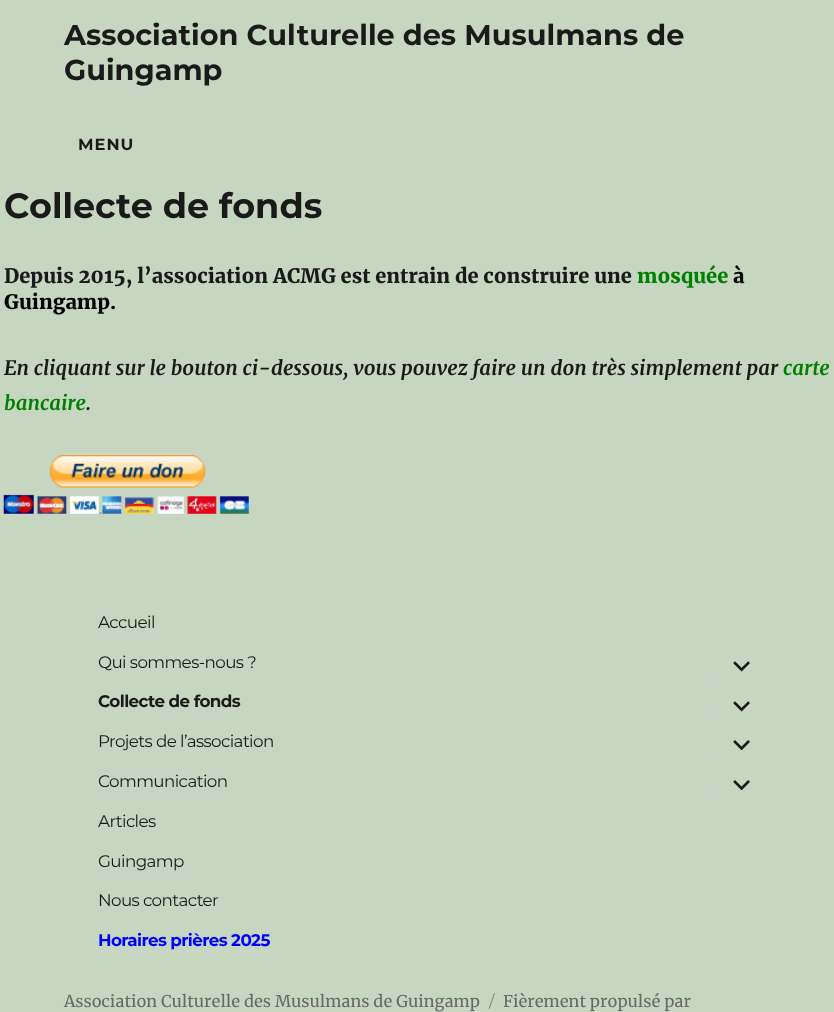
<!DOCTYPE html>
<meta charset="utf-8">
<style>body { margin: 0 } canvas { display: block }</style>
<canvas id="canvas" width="834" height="1012"></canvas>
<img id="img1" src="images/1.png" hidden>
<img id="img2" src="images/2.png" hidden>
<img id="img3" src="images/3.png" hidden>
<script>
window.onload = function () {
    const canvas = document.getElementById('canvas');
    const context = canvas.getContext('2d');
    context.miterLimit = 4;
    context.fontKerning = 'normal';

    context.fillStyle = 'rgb(199, 214, 192)';
    context.fillRect(0, 0, 834, 1012);
    context.beginPath();
    context.roundRect(64.5, 123.5, 83, 42, 2);
    context.strokeStyle = 'rgb(209, 209, 209)';
    context.stroke();
    context.drawImage(document.getElementById('img1'), 3, 455, 246, 59);
    context.fillStyle = 'rgb(209, 209, 209)';
    context.fillRect(64, 951, 707, 1);
    context.fillRect(64, 594, 707, 1);
    context.fillRect(64, 634, 707, 1);
    context.fillRect(713, 650, 1, 30);
    context.drawImage(document.getElementById('img2'), 733, 661, 17, 11);
    context.fillRect(64, 674, 707, 1);
    context.fillRect(713, 690, 1, 30);
    context.drawImage(document.getElementById('img2'), 733, 701, 17, 11);
    context.fillRect(64, 713, 707, 1);
    context.fillRect(713, 729, 1, 30);
    context.drawImage(document.getElementById('img3'), 733, 740, 17, 11);
    context.fillRect(64, 753, 707, 1);
    context.fillRect(713, 769, 1, 30);
    context.drawImage(document.getElementById('img3'), 733, 780, 17, 11);
    context.fillRect(64, 793, 707, 1);
    context.fillRect(64, 833, 707, 1);
    context.fillRect(64, 873, 707, 1);
    context.fillRect(64, 913, 707, 1);
    context.font = '100 28.75px Montserrat';
    context.fillStyle = 'rgb(26, 26, 26)';
    context.fillText('Association Culturelle des Musulmans de', 64, 45);
    context.fillText('Guingamp', 64, 80);
    context.letterSpacing = '1px';
    context.font = '100 16.25px Montserrat';
    context.fillText('MENU', 78, 150);
    context.letterSpacing = '0px';
    context.font = '100 35px Montserrat';
    context.fillText('Collecte de fonds', 4, 218);
    context.font = '900 20px Merriweather';
    context.fillText('Depuis 2015, l’association ACMG est entrain de construire une', 4, 283);
    context.fillStyle = 'rgb(0, 128, 0)';
    context.fillText('mosquée', 637, 283);
    context.fillStyle = 'rgb(0, 0, 0)';
    context.fillText('à', 733, 283);
    context.fillText('Guingamp.', 4, 309);
    context.font = 'italic bold 20px Merriweather';
    context.fillStyle = 'rgb(26, 26, 26)';
    context.fillText('En cliquant sur le bouton ci-dessous, vous pouvez faire un don très simplement par', 4, 375);
    context.fillStyle = 'rgb(0, 128, 0)';
    context.fillText('carte', 783, 375);
    context.fillText('bancaire', 4, 410);
    context.fillStyle = 'rgb(26, 26, 26)';
    context.fillText('.', 86, 410);
    context.letterSpacing = '-0.6px';
    context.font = '100 16.75px "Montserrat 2"';
    context.fillText('Accueil', 98, 628);
    context.fillText('Qui sommes-nous ?', 98, 668);
    context.font = '100 16.75px Montserrat';
    context.fillText('Collecte de fonds', 98, 707);
    context.font = '100 16.75px "Montserrat 2"';
    context.fillText('Projets de l’association', 98, 747);
    context.fillText('Communication', 98, 787);
    context.fillText('Articles', 98, 827);
    context.fillText('Guingamp', 98, 867);
    context.fillText('Nous contacter', 98, 906);
    context.font = '100 16.75px Montserrat';
    context.fillStyle = 'rgb(0, 0, 255)';
    context.fillText('Horaires prières 2025', 98, 946);
    context.letterSpacing = '0px';
    context.font = '16.25px Merriweather';
    context.fillStyle = 'rgb(104, 104, 104)';
    context.fillText('Association Culturelle des Musulmans de Guingamp', 64, 1007);
    context.font = '100 16.25px "Montserrat 2"';
    context.fillStyle = 'rgb(133, 137, 130)';
    context.fillText('/', 489, 1007);
    context.font = '16.25px Merriweather';
    context.fillStyle = 'rgb(104, 104, 104)';
    context.fillText('Fièrement propulsé par', 503, 1007);
};
</script>
